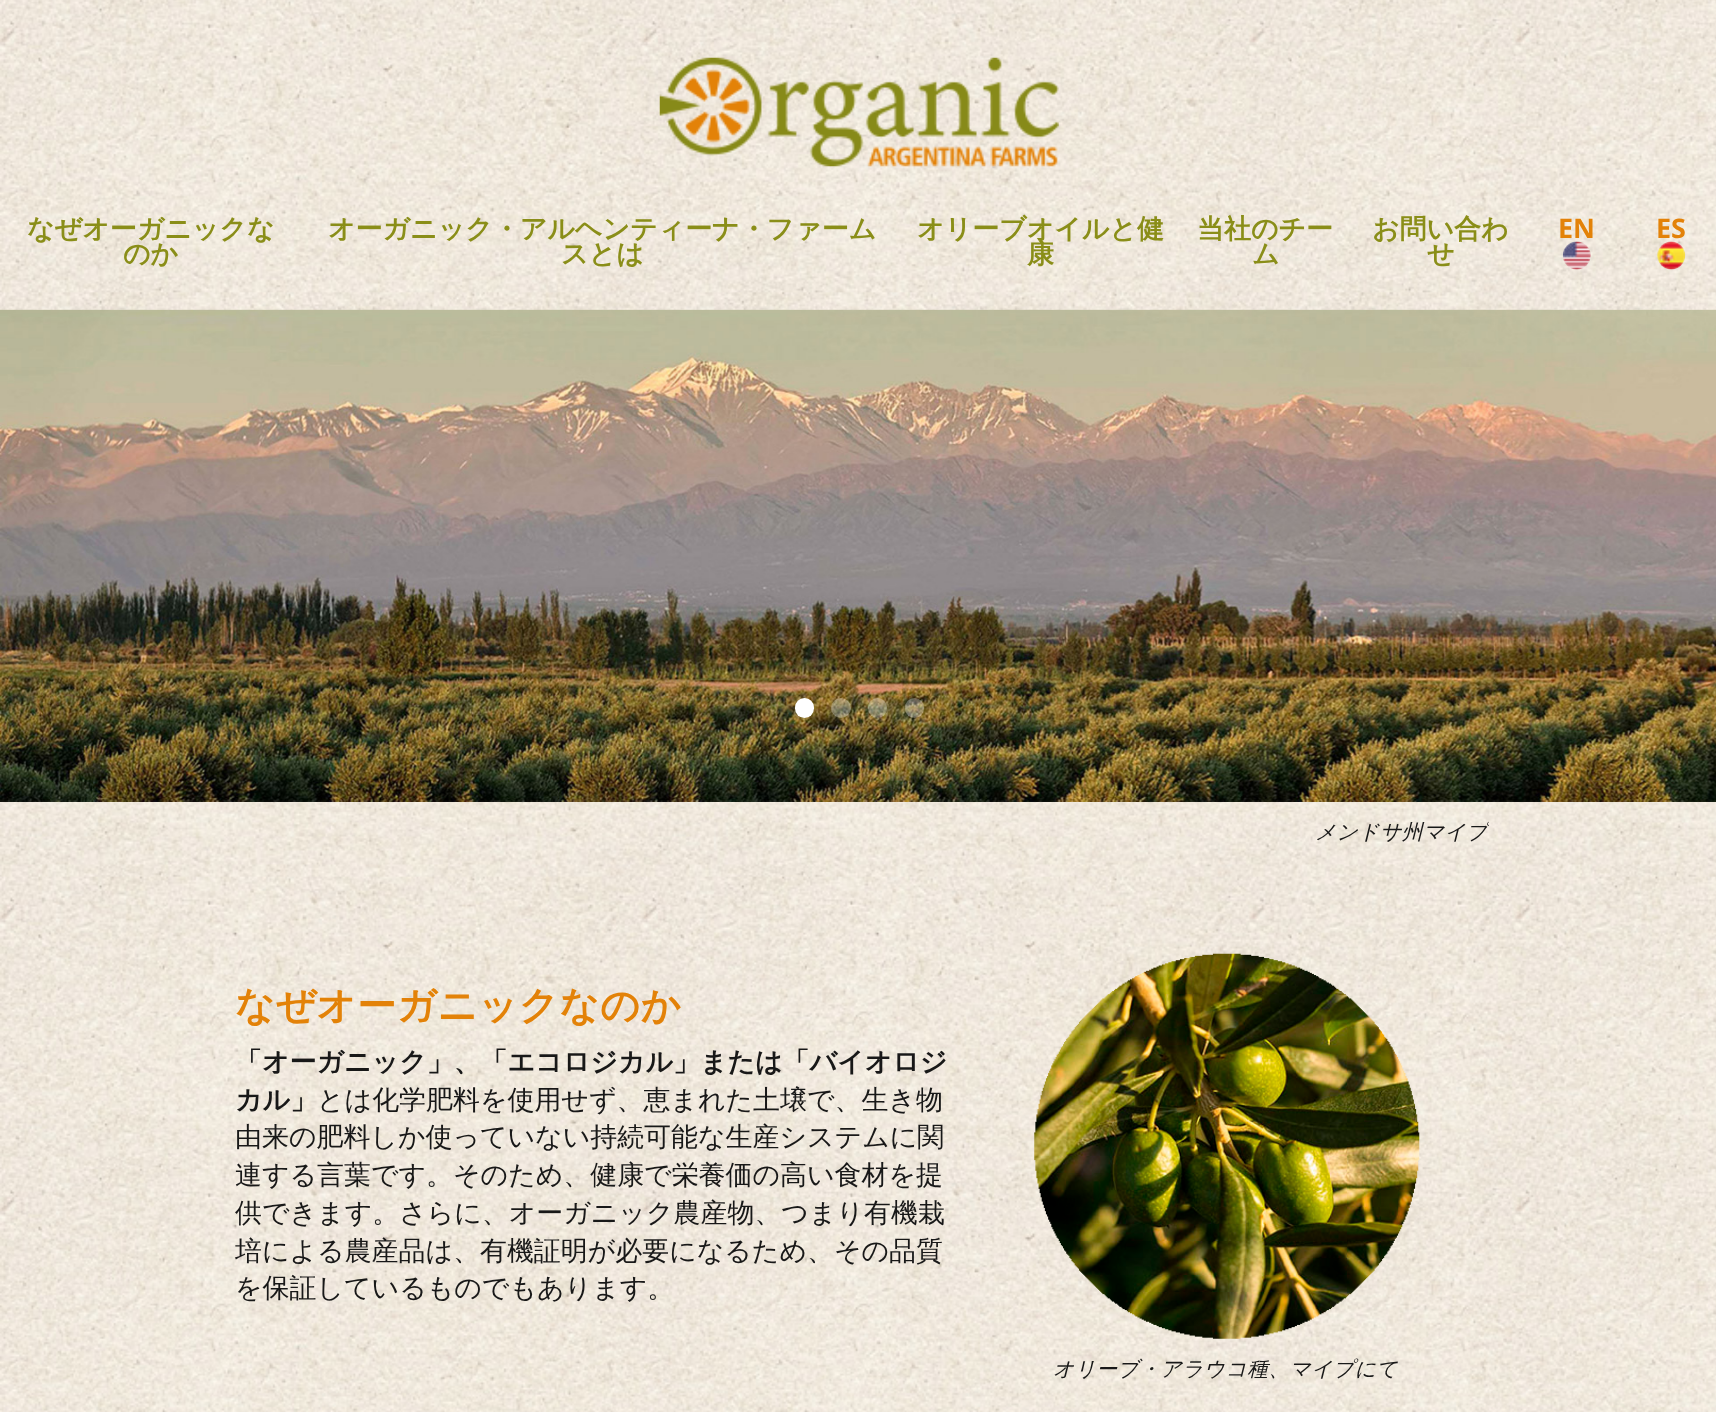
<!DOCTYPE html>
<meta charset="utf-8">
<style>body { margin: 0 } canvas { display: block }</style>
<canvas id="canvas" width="1716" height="1412"></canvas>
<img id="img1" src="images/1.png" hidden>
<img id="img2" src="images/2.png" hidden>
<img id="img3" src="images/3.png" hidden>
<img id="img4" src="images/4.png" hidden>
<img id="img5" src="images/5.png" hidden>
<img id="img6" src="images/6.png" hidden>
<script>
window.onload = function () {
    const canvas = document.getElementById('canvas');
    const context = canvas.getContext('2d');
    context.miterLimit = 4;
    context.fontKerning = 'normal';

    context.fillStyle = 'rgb(255, 255, 255)';
    context.fillRect(0, 0, 1716, 1412);
    context.drawImage(document.getElementById('img1'), 0, 0, 1716, 1412);
    context.drawImage(document.getElementById('img2'), 659, 57, 400, 110);
    context.drawImage(document.getElementById('img3'), 1562, 241, 29, 29);
    context.drawImage(document.getElementById('img4'), 1657, 241, 29, 29);
    context.drawImage(document.getElementById('img5'), 0, 309, 1716, 493);
    context.beginPath();
    context.roundRect(795, 698, 19, 20, 9.5);
    context.fill();
    context.fillStyle = 'rgba(255, 255, 255, 0.3)';
    context.beginPath();
    context.arc(841, 708, 10, 0, 2 * Math.PI);
    context.fill();
    context.beginPath();
    context.roundRect(868, 698, 19, 20, 9.5);
    context.fill();
    context.beginPath();
    context.roundRect(905, 698, 19, 20, 9.5);
    context.fill();
    context.drawImage(document.getElementById('img6'), 1034, 953, 386, 386);
    context.font = 'bold 26.95px WenQuanYi Zen Hei';
    context.fillStyle = 'rgb(138, 142, 24)';
    context.fillText('なぜオーガニックな', 27, 238);
    context.fillText('のか', 123, 263);
    context.fillText('オーガニック・アルヘンティーナ・ファーム', 328, 238);
    context.fillText('スとは', 561, 263);
    context.fillText('オリーブオイルと健', 917, 238);
    context.fillText('康', 1027, 263);
    context.fillText('当社のチー', 1197, 238);
    context.fillText('ム', 1252, 263);
    context.fillText('お問い合わ', 1372, 238);
    context.fillText('せ', 1427, 263);
    context.font = 'bold 26.95px Open Sans';
    context.fillStyle = 'rgb(227, 130, 8)';
    context.fillText('EN', 1558, 238);
    context.fillText('ES', 1656, 238);
    context.save();
    context.beginPath();
    context.rect(229, 817, 1260, 28);
    context.clip();
    context.letterSpacing = '0.4px';
    context.font = 'italic 500 20.8px WenQuanYi Zen Hei';
    context.fillStyle = 'rgb(24, 24, 24)';
    context.fillText('メンドサ州マイプ', 1315, 839);
    context.restore();
    context.letterSpacing = '0.5px';
    context.font = 'bold 39.25px WenQuanYi Zen Hei';
    context.fillText('なぜオーガニックなのか', 235, 1019);
    context.letterSpacing = '0px';
    context.font = 'bold 26.95px WenQuanYi Zen Hei';
    context.fillStyle = 'rgb(24, 24, 24)';
    context.fillText('「オーガニック」、「エコロジカル」または「バイオロジ', 235, 1071);
    context.fillText('カル」', 235, 1109);
    context.font = '500 26.95px WenQuanYi Zen Hei';
    context.fillText('とは化学肥料を使用せず、恵まれた土壌で、生き物', 317, 1109);
    context.fillText('由来の肥料しか使っていない持続可能な生産システムに関', 235, 1146);
    context.fillText('連する言葉です。そのため、健康で栄養価の高い食材を提', 235, 1184);
    context.fillText('供できます。さらに、オーガニック農産物、つまり有機栽', 235, 1222);
    context.fillText('培による農産品は、有機証明が必要になるため、その品質', 235, 1260);
    context.fillText('を保証しているものでもあります。', 235, 1297);
    context.letterSpacing = '0.4px';
    context.font = 'italic 500 20.8px WenQuanYi Zen Hei';
    context.fillText('オリーブ・アラウコ種、マイプにて', 1053, 1376);
};
</script>
